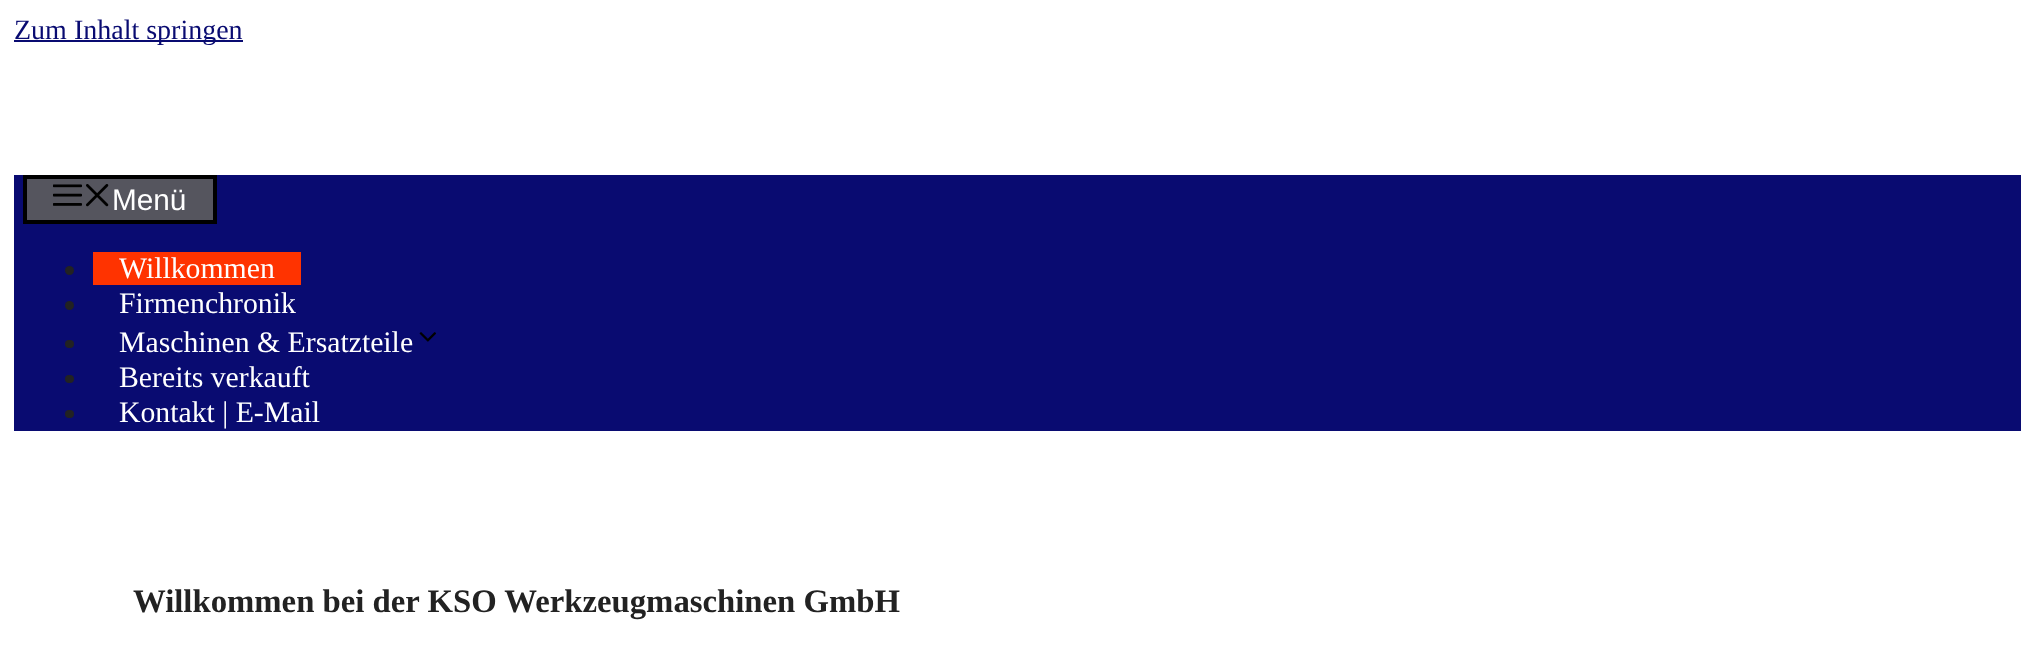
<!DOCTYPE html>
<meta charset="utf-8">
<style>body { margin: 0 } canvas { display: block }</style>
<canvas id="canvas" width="2034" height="659"></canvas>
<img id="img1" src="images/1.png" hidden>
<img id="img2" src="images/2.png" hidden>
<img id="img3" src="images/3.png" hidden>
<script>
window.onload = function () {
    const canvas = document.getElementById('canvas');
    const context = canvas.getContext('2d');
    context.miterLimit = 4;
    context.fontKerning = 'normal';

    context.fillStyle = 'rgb(255, 255, 255)';
    context.fillRect(0, 0, 2034, 659);
    context.fillStyle = 'rgb(9, 11, 113)';
    context.fillRect(14, 40, 229, 2);
    context.fillRect(14, 175, 2007, 256);
    context.fillStyle = 'rgb(85, 85, 94)';
    context.beginPath();
    context.rect(25, 177, 190, 45);
    context.fill();
    context.strokeStyle = 'rgb(0, 0, 0)';
    context.lineWidth = 4;
    context.stroke();
    context.drawImage(document.getElementById('img1'), 53, 184, 29, 22);
    context.drawImage(document.getElementById('img2'), 86, 184, 23, 23);
    context.fillStyle = 'rgb(34, 34, 34)';
    context.beginPath();
    context.arc(69.5, 270.5, 4.5, 0, 2 * Math.PI);
    context.fill();
    context.fillStyle = 'rgb(255, 51, 0)';
    context.fillRect(93, 252, 208, 33);
    context.fillStyle = 'rgb(34, 34, 34)';
    context.beginPath();
    context.arc(69.5, 305.5, 4.5, 0, 2 * Math.PI);
    context.fill();
    context.drawImage(document.getElementById('img3'), 419, 332, 17, 10);
    context.beginPath();
    context.roundRect(65, 340, 9, 8, 4);
    context.fill();
    context.beginPath();
    context.roundRect(65, 375, 9, 8, 4);
    context.fill();
    context.beginPath();
    context.roundRect(65, 410, 9, 8, 4);
    context.fill();
    context.font = '28px Liberation Serif';
    context.fillStyle = 'rgb(9, 11, 113)';
    context.fillText('Zum Inhalt springen', 14, 39);
    context.font = '29.75px Liberation Sans';
    context.fillStyle = 'rgb(255, 255, 255)';
    context.fillText('Menü', 112, 210);
    context.font = '29.75px Liberation Serif';
    context.fillText('Willkommen', 119, 278);
    context.fillText('Firmenchronik', 119, 313);
    context.fillText('Maschinen & Ersatzteile', 119, 352);
    context.fillText('Bereits verkauft', 119, 387);
    context.fillText('Kontakt | E-Mail', 119, 422);
    context.font = 'bold 32.75px Liberation Serif';
    context.fillStyle = 'rgb(34, 34, 34)';
    context.fillText('Willkommen bei der KSO Werkzeugmaschinen GmbH', 133, 612);
};
</script>
